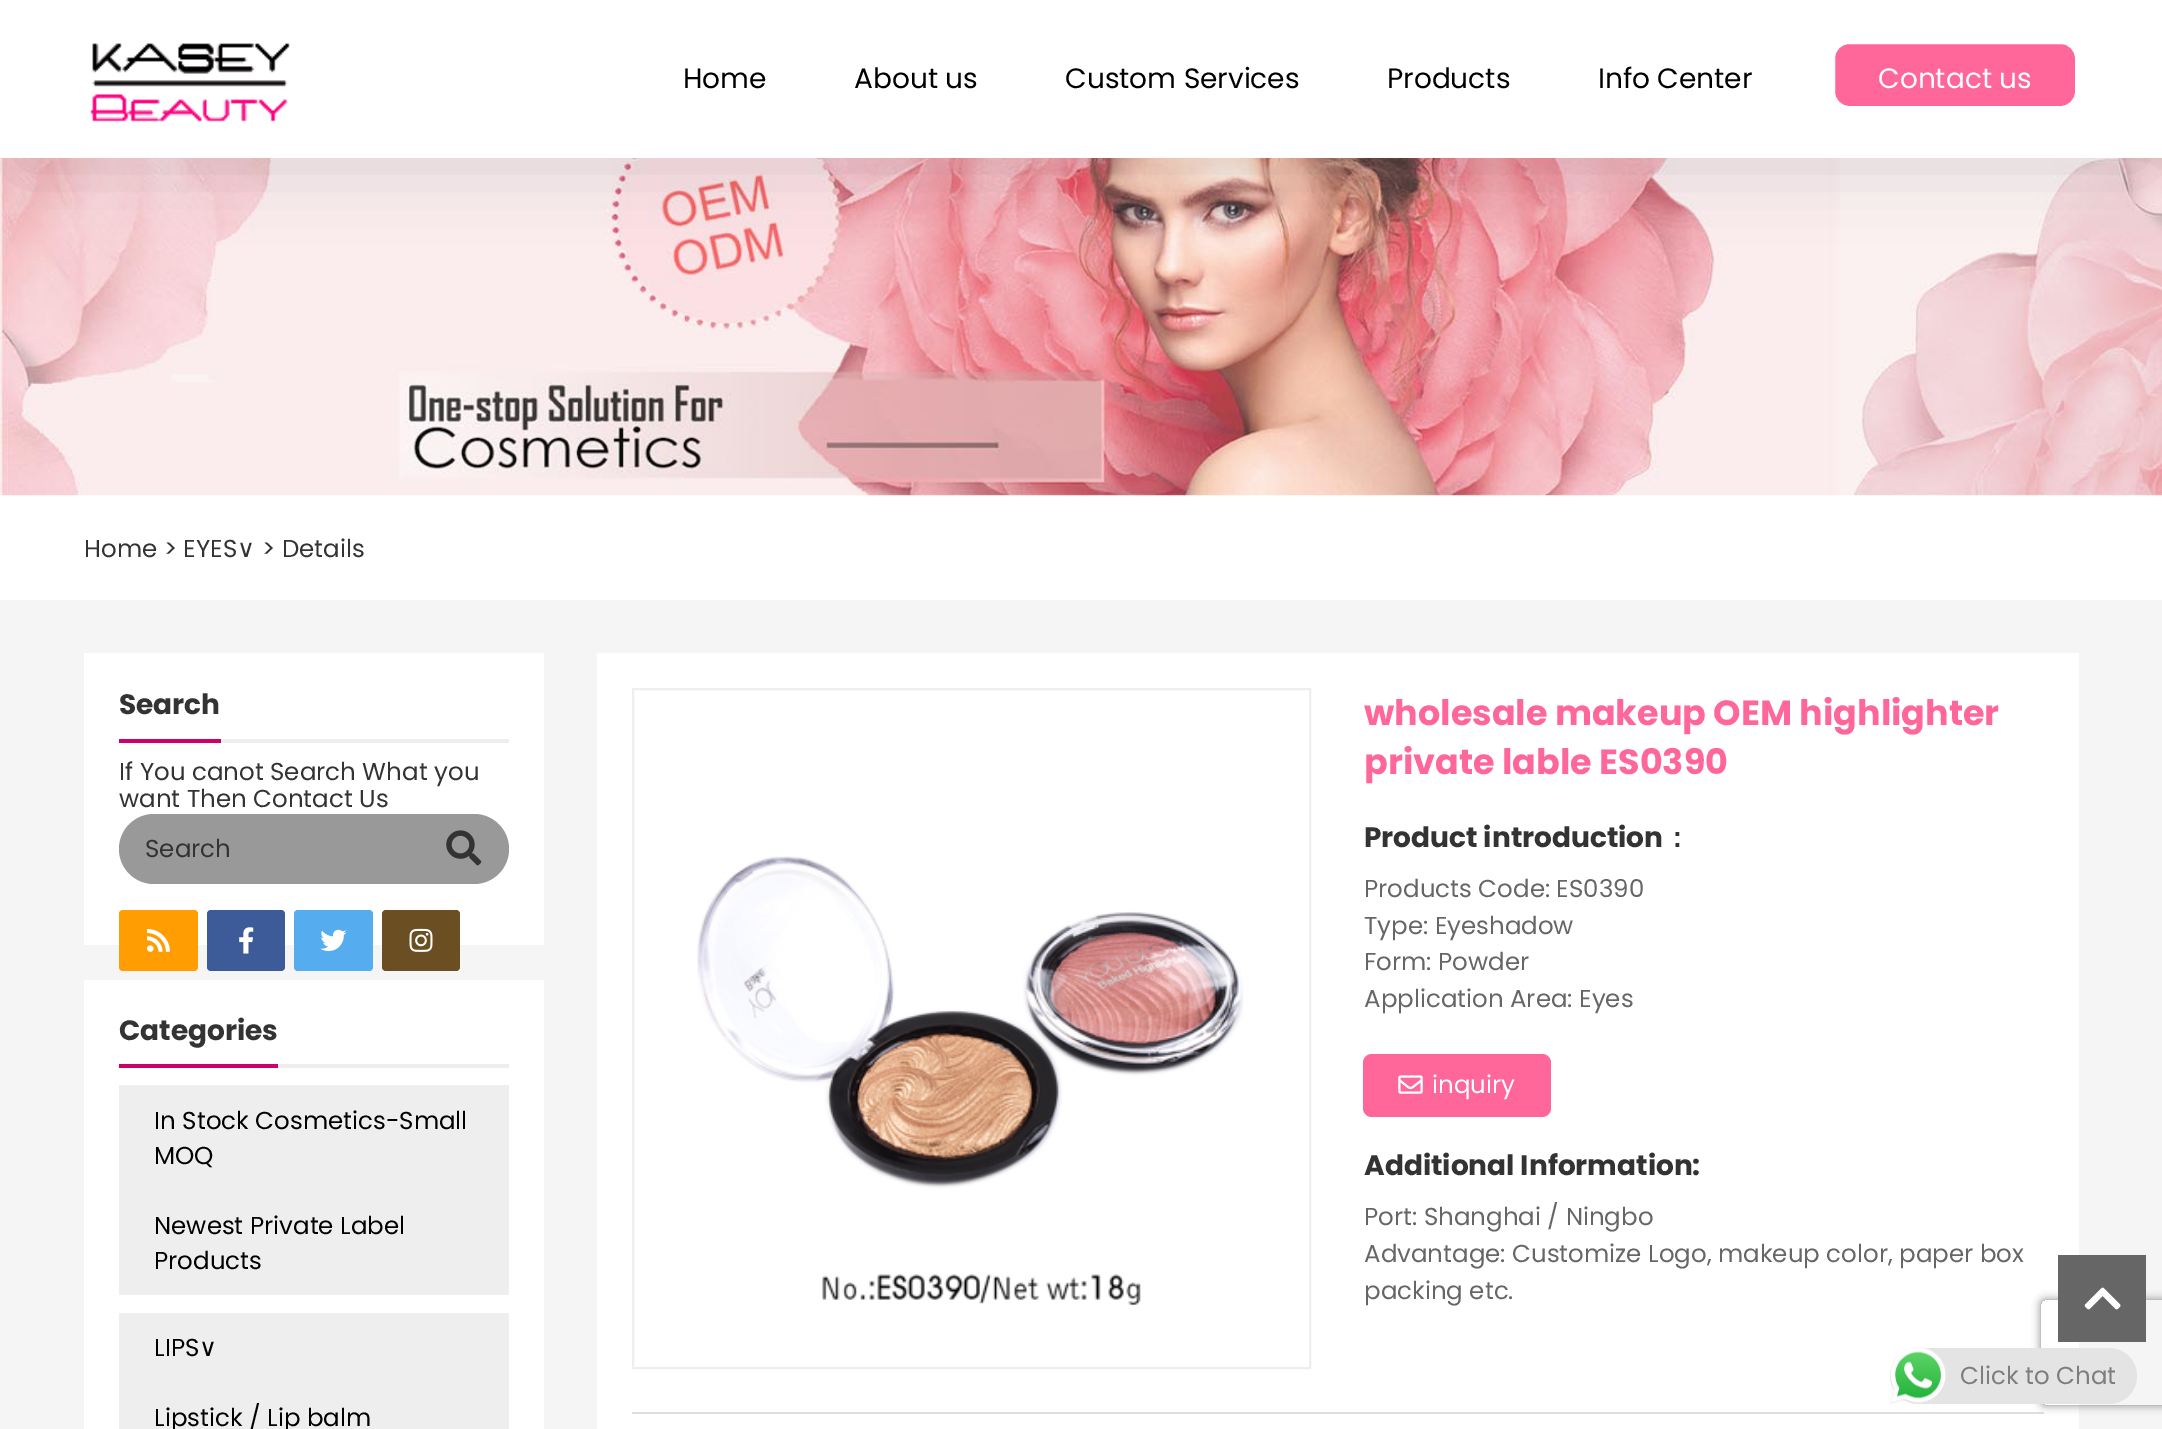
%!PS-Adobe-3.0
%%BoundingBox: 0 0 2162 1429
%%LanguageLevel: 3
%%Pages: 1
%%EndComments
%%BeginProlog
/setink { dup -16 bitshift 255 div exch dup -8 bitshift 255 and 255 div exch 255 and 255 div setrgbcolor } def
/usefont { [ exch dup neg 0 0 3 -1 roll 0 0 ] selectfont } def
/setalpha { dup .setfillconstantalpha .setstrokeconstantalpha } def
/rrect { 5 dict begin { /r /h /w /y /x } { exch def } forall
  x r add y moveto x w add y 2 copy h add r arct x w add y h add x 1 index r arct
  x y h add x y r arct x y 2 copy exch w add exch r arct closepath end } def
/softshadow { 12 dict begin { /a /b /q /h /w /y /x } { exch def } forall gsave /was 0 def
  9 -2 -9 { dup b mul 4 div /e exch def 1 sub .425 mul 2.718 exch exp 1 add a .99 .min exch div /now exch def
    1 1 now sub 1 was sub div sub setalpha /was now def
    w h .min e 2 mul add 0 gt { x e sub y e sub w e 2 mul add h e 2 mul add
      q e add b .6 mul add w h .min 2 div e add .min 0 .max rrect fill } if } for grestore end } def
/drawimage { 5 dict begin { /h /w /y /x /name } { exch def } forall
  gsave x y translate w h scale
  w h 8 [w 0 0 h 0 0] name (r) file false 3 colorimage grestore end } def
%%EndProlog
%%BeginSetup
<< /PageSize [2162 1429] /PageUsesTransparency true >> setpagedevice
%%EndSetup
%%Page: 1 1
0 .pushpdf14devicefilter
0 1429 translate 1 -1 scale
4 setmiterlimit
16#FFFFFF setink
0 0 2162 1429 rectfill
(img2.raw) 0 158 2162 338 drawimage
16#162331 setink
18 44 2128 122 0 35 0.15 softshadow
16#FFFFFF setink
0 0 2162 158 rectfill
(img1.raw) 90 43 200 79 drawimage
/Poppins-Regular 28 usefont
16#000000 setink
[
    [(Home) 683 88]
    [(About us) 854 88]
    [(Custom Services) 1065 88]
    [(Products) 1387 88]
    [(Info Center) 1598 88]
] { aload pop moveto show } forall
16#FF6699 setink
1833 42 244 66 16 rrect gsave fill grestore
16#FFFFFF setink
4 setlinewidth
stroke
1878 88 moveto (Contact us) show
/Poppins-Regular 24.5 usefont
16#333333 setink
84 557 moveto (Home > EYES) show
/DejaVuSans-Regular 24.5 usefont
237 557 moveto (∨) show
/Poppins-Regular 24.5 usefont
262 557 moveto (> Details) show
[
    [0 600 2162 829 16#F5F5F5]
    [84 653 460 292 16#FFFFFF]
    [221 739 288 4 16#EEEEEE]
    [119 739 102 4 16#CC0066]
] { aload pop setink rectfill } forall
/Poppins-Bold 28 usefont
16#333333 setink
119 714 moveto (Search) show
/Poppins-Regular 24.5 usefont
119 780 moveto (If You canot Search What you) show
119 807 moveto (want Then Contact Us) show
16#999999 setink
119 814 390 70 35 rrect fill
16#333333 setink
145 857 moveto (Search) show
(img3.raw) 446 830 36 36 drawimage
16#FF9D03 setink
119 910 79 61 4 rrect fill
(img4.raw) 147 928 23 24 drawimage
16#3D5A99 setink
207 910 78 61 4 rrect fill
(img5.raw) 239 927 15 27 drawimage
16#55ACEE setink
294 910 79 61 4 rrect fill
(img6.raw) 320 929 27 23 drawimage
16#6B4E21 setink
382 910 78 61 4 rrect fill
(img7.raw) 409 928 24 24 drawimage
[
    [84 980 460 449 16#FFFFFF]
    [278 1064 231 4 16#EEEEEE]
    [119 1064 159 4 16#CC0066]
] { aload pop setink rectfill } forall
/Poppins-Bold 28 usefont
16#333333 setink
119 1040 moveto (Categories) show
16#EEEEEE setink
119 1085 390 210 rectfill
/Poppins-Regular 24.5 usefont
16#000000 setink
[
    [(In Stock Cosmetics-Small) 154 1129]
    [(MOQ) 154 1164]
    [(Newest Private Label) 154 1234]
    [(Products) 154 1269]
] { aload pop moveto show } forall
16#EEEEEE setink
119 1313 390 116 rectfill
16#000000 setink
154 1356 moveto (LIPS) show
/DejaVuSans-Regular 24.5 usefont
199 1356 moveto (∨) show
/Poppins-Regular 24.5 usefont
154 1426 moveto (Lipstick / Lip balm) show
16#FFFFFF setink
597 653 1482 776 rectfill
16#DEDEDE setink
632 1412 1412 2 rectfill
16#EEEEEE setink
2 setlinewidth
633 689 677 679 rectstroke
(img8.raw) 697 856 547 450 drawimage
/Poppins-Bold 35 usefont
16#FF6699 setink
1364 725 moveto (wholesale makeup OEM highlighter) show
1364 774 moveto (private lable ES0390) show
/Poppins-Bold 28 usefont
16#333333 setink
1364 847 moveto (Product introduction) show
/WenQuanYiZenHei-Bold 28 usefont
1663 847 moveto (：) show
/Poppins-Regular 24.5 usefont
16#666666 setink
[
    [(Products Code: ES0390) 1364 897]
    [(Type: Eyeshadow) 1364 934]
    [(Form: Powder) 1364 970]
    [(Application Area: Eyes) 1364 1007]
] { aload pop moveto show } forall
16#FF6699 setink
1363 1054 188 63 9 rrect fill
(img9.raw) 1398 1075 25 19 drawimage
16#FFFFFF setink
1432 1093 moveto (inquiry) show
/Poppins-Bold 28 usefont
16#333333 setink
1364 1175 moveto (Additional Information:) show
/Poppins-Regular 24.5 usefont
16#666666 setink
[
    [(Port: Shanghai / Ningbo) 1364 1225]
    [(Advantage: Customize Logo, makeup color, paper box) 1364 1262]
    [(packing etc.) 1364 1299]
] { aload pop moveto show } forall
gsave
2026 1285 moveto 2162 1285 lineto 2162 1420 lineto 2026 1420 lineto closepath 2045 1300 moveto 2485 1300 lineto 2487 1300 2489 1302 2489 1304 curveto 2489 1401 lineto 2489 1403 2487 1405 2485 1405 curveto 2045 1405 lineto 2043 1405 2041 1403 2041 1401 curveto 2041 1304 lineto 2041 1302 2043 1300 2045 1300 curveto closepath eoclip newpath
16#808080 setink
2041 1300 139 105 4 4.5 1 softshadow
grestore
2058 1255 88 87 rectfill
(img10.raw) 2084 1287 37 23 drawimage
16#E4E4E4 setink
1890 1348 247 56 28 rrect fill
(img11.raw) 1890 1347 56 57 drawimage
16#7F7D7D setink
1960 1384 moveto (Click to Chat) show
.poppdf14devicefilter showpage
%%EOF
